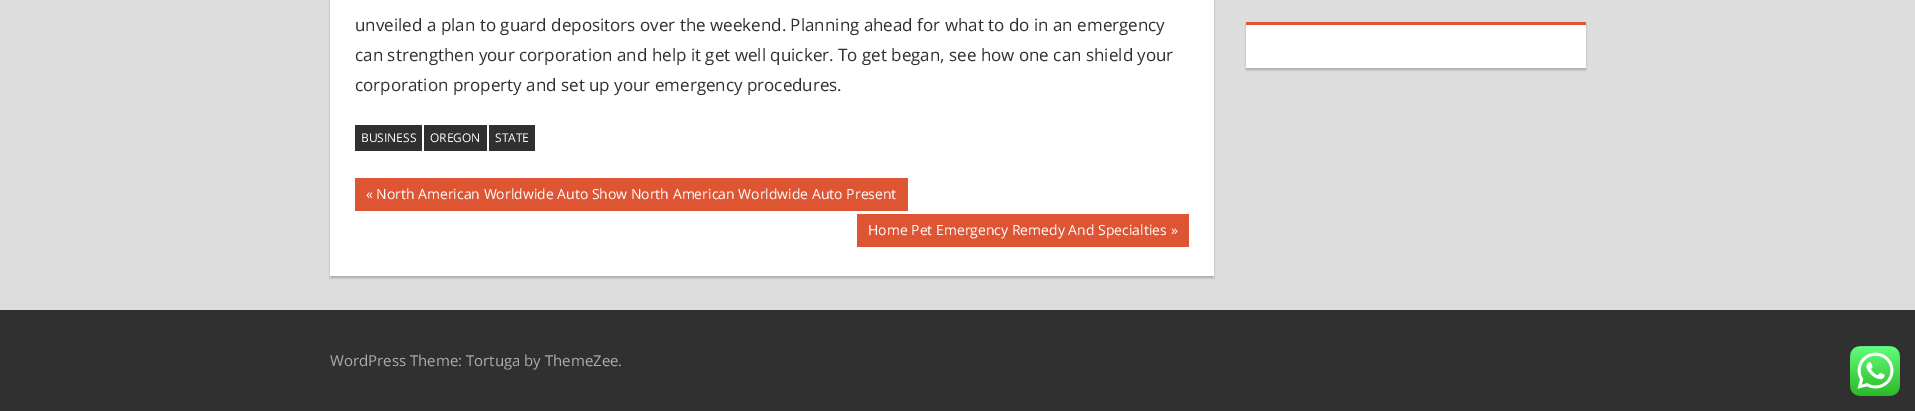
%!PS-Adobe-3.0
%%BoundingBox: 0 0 1915 411
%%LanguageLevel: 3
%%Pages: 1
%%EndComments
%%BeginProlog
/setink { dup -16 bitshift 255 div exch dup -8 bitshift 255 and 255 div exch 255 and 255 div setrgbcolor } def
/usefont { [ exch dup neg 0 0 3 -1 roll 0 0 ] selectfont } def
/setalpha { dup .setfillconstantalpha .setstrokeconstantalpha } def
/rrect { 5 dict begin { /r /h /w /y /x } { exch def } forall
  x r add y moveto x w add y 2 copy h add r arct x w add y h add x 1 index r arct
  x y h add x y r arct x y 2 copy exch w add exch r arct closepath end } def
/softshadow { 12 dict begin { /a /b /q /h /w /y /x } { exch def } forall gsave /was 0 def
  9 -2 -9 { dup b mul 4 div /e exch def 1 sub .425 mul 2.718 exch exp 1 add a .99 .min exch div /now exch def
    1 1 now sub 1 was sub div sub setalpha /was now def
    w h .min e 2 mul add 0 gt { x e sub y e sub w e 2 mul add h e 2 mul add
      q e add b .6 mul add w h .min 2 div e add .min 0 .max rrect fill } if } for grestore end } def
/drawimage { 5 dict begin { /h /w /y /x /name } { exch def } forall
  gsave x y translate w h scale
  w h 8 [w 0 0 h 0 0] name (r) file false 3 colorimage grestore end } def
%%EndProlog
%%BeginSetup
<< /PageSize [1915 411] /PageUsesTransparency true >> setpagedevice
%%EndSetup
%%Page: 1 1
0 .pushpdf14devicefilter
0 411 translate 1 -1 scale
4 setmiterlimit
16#DDDDDD setink
0 0 1915 411 rectfill
16#AAAAAA setink
330 -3 884 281 0 1 1 softshadow
16#FFFFFF setink
330 0 884 276 rectfill
/OpenSans-Regular 17 usefont
16#303030 setink
[
    [(unveiled a plan to guard depositors over the weekend. Planning ahead for what to do in an emergency) 355 31]
    [(can strengthen your corporation and help it get well quicker. To get began, see how one can shield your) 355 61]
    [(corporation property and set up your emergency procedures.) 355 91]
] { aload pop moveto show } forall
355 125 67 26 rectfill
/OpenSans-Regular 12 usefont
16#FFFFFF setink
361 142 moveto (BUSINESS) show
16#303030 setink
424 125 63 26 rectfill
16#FFFFFF setink
430 142 moveto (OREGON) show
16#303030 setink
489 125 46 26 rectfill
16#FFFFFF setink
495 142 moveto (STATE) show
16#DD5533 setink
355 178 553 33 rectfill
/OpenSans-Regular 14 usefont
16#FFFFFF setink
366 199 moveto («) show
376 199 moveto (North American Worldwide Auto Show North American Worldwide Auto Present) show
16#DD5533 setink
857 214 332 33 rectfill
16#FFFFFF setink
868 235 moveto (Home Pet Emergency Remedy And Specialties) show
1171 235 moveto (») show
16#AAAAAA setink
1246 24 340 46 0 1 1 softshadow
[
    [1246 25 340 43 16#FFFFFF]
    [1246 22 340 3 16#DD5533]
    [0 310 1915 101 16#303030]
] { aload pop setink rectfill } forall
/OpenSans-Regular 15 usefont
16#ACACAC setink
330 366 moveto (WordPress Theme: Tortuga by ThemeZee.) show
(img1.raw) 1850 346 50 50 drawimage
.poppdf14devicefilter showpage
%%EOF
